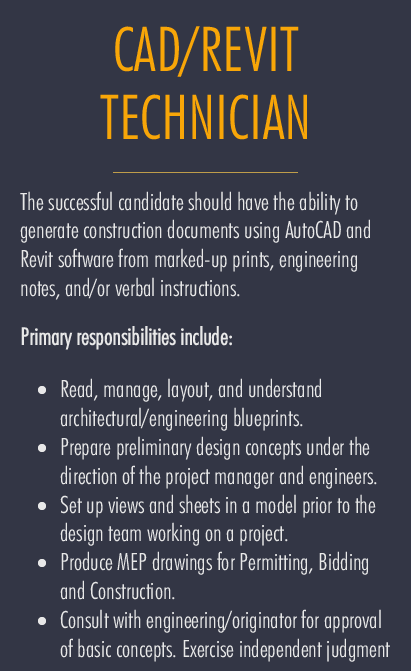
%!PS-Adobe-3.0
%%BoundingBox: 0 0 411 671
%%LanguageLevel: 3
%%Pages: 1
%%EndComments
%%BeginProlog
/setink { dup -16 bitshift 255 div exch dup -8 bitshift 255 and 255 div exch 255 and 255 div setrgbcolor } def
/usefont { [ exch dup neg 0 0 3 -1 roll 0 0 ] selectfont } def
/disc { newpath 0 360 arc closepath } def
%%EndProlog
%%BeginSetup
<< /PageSize [411 671] >> setpagedevice
%%EndSetup
%%Page: 1 1
0 671 translate 1 -1 scale
4 setmiterlimit
16#333645 setink
0 0 411 671 rectfill
/Futura-Light 62 usefont
16#F8A608 setink
113 71 moveto (CAD/REVIT) show
100 139 moveto (TECHNICIAN) show
16#BF9D4A setink
113 172 185 1 rectfill
/Futura-Light 24 usefont
16#E8E8E8 setink
[
    [(The successful candidate should have the ability to) 20 210]
    [(generate construction documents using AutoCAD and) 20 238]
    [(Revit software from marked-up prints, engineering) 20 267]
    [(notes, and/or verbal instructions.) 20 296]
] { aload pop moveto show } forall
/Futura-Bold 24 usefont
20 345 moveto (Primary responsibilities include:) show
42 390 4 disc fill
/Futura-Light 24 usefont
60 397 moveto (Read, manage, layout, and understand) show
60 426 moveto (architectural/engineering blueprints.) show
42 448 4 disc fill
60 455 moveto (Prepare preliminary design concepts under the) show
60 484 moveto (direction of the project manager and engineers.) show
42 506 4 disc fill
60 513 moveto (Set up views and sheets in a model prior to the) show
60 541 moveto (design team working on a project.) show
42 563 4 disc fill
60 570 moveto (Produce MEP drawings for Permitting, Bidding) show
60 599 moveto (and Construction.) show
42 621 4 disc fill
60 628 moveto (Consult with engineering/originator for approval) show
60 657 moveto (of basic concepts. Exercise independent judgment) show
showpage
%%EOF
